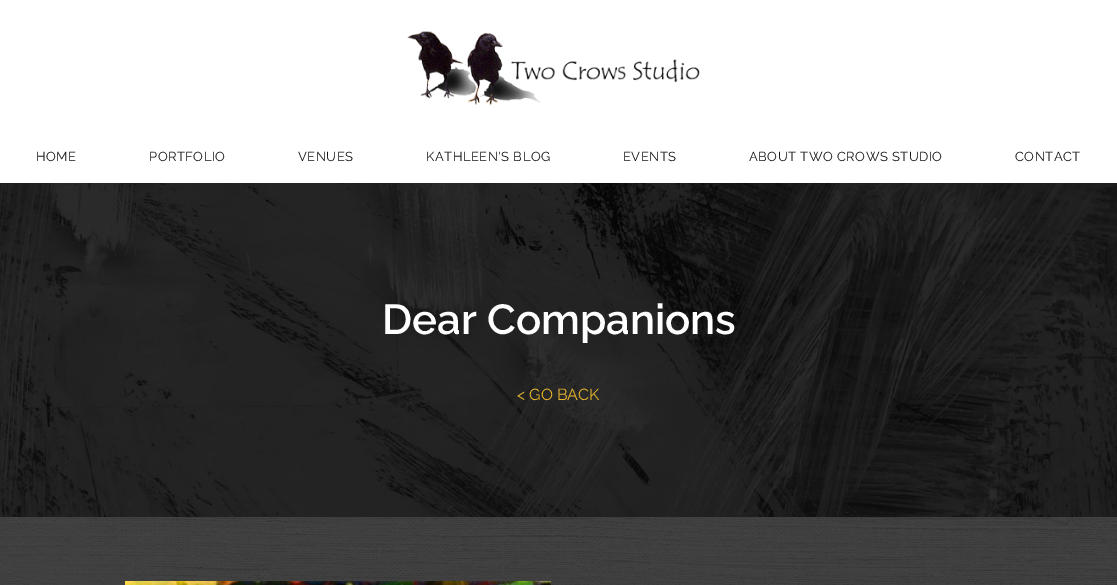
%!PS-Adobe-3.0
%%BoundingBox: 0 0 1117 585
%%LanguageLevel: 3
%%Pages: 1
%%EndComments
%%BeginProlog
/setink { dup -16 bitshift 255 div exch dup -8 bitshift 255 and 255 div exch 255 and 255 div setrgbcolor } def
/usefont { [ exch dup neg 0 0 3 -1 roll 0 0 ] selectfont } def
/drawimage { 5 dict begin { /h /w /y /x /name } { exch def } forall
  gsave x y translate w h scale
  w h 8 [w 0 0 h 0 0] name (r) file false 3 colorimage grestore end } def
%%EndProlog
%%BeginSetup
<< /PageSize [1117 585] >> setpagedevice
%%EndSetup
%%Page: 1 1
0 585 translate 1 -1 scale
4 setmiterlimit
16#FFFFFF setink
0 0 1117 585 rectfill
(img1.raw) 407 31 293 75 drawimage
/Raleway-Regular 13 usefont
16#151414 setink
36 161 moveto 0.5 0 (HOME) ashow
149 161 moveto 0.5 0 (PORTFOLIO) ashow
298 161 moveto 0.5 0 (VENUES) ashow
426 161 moveto 0.5 0 (KATHLEEN'S BLOG) ashow
623 161 moveto 0.5 0 (EVENTS) ashow
749 161 moveto 0.5 0 (ABOUT TWO CROWS STUDIO) ashow
1015 161 moveto 0.5 0 (CONTACT) ashow
(img2.raw) 0 183 1117 334 drawimage
/Raleway-SemiBold 42 usefont
16#FFFFFF setink
382 334 moveto (Dear Companions) show
/Raleway-Regular 16 usefont
16#EBB82E setink
517 400 moveto (< GO BACK) show
(img3.raw) 0 517 1117 68 drawimage
(img4.raw) 125 581 426 4 drawimage
showpage
%%EOF
